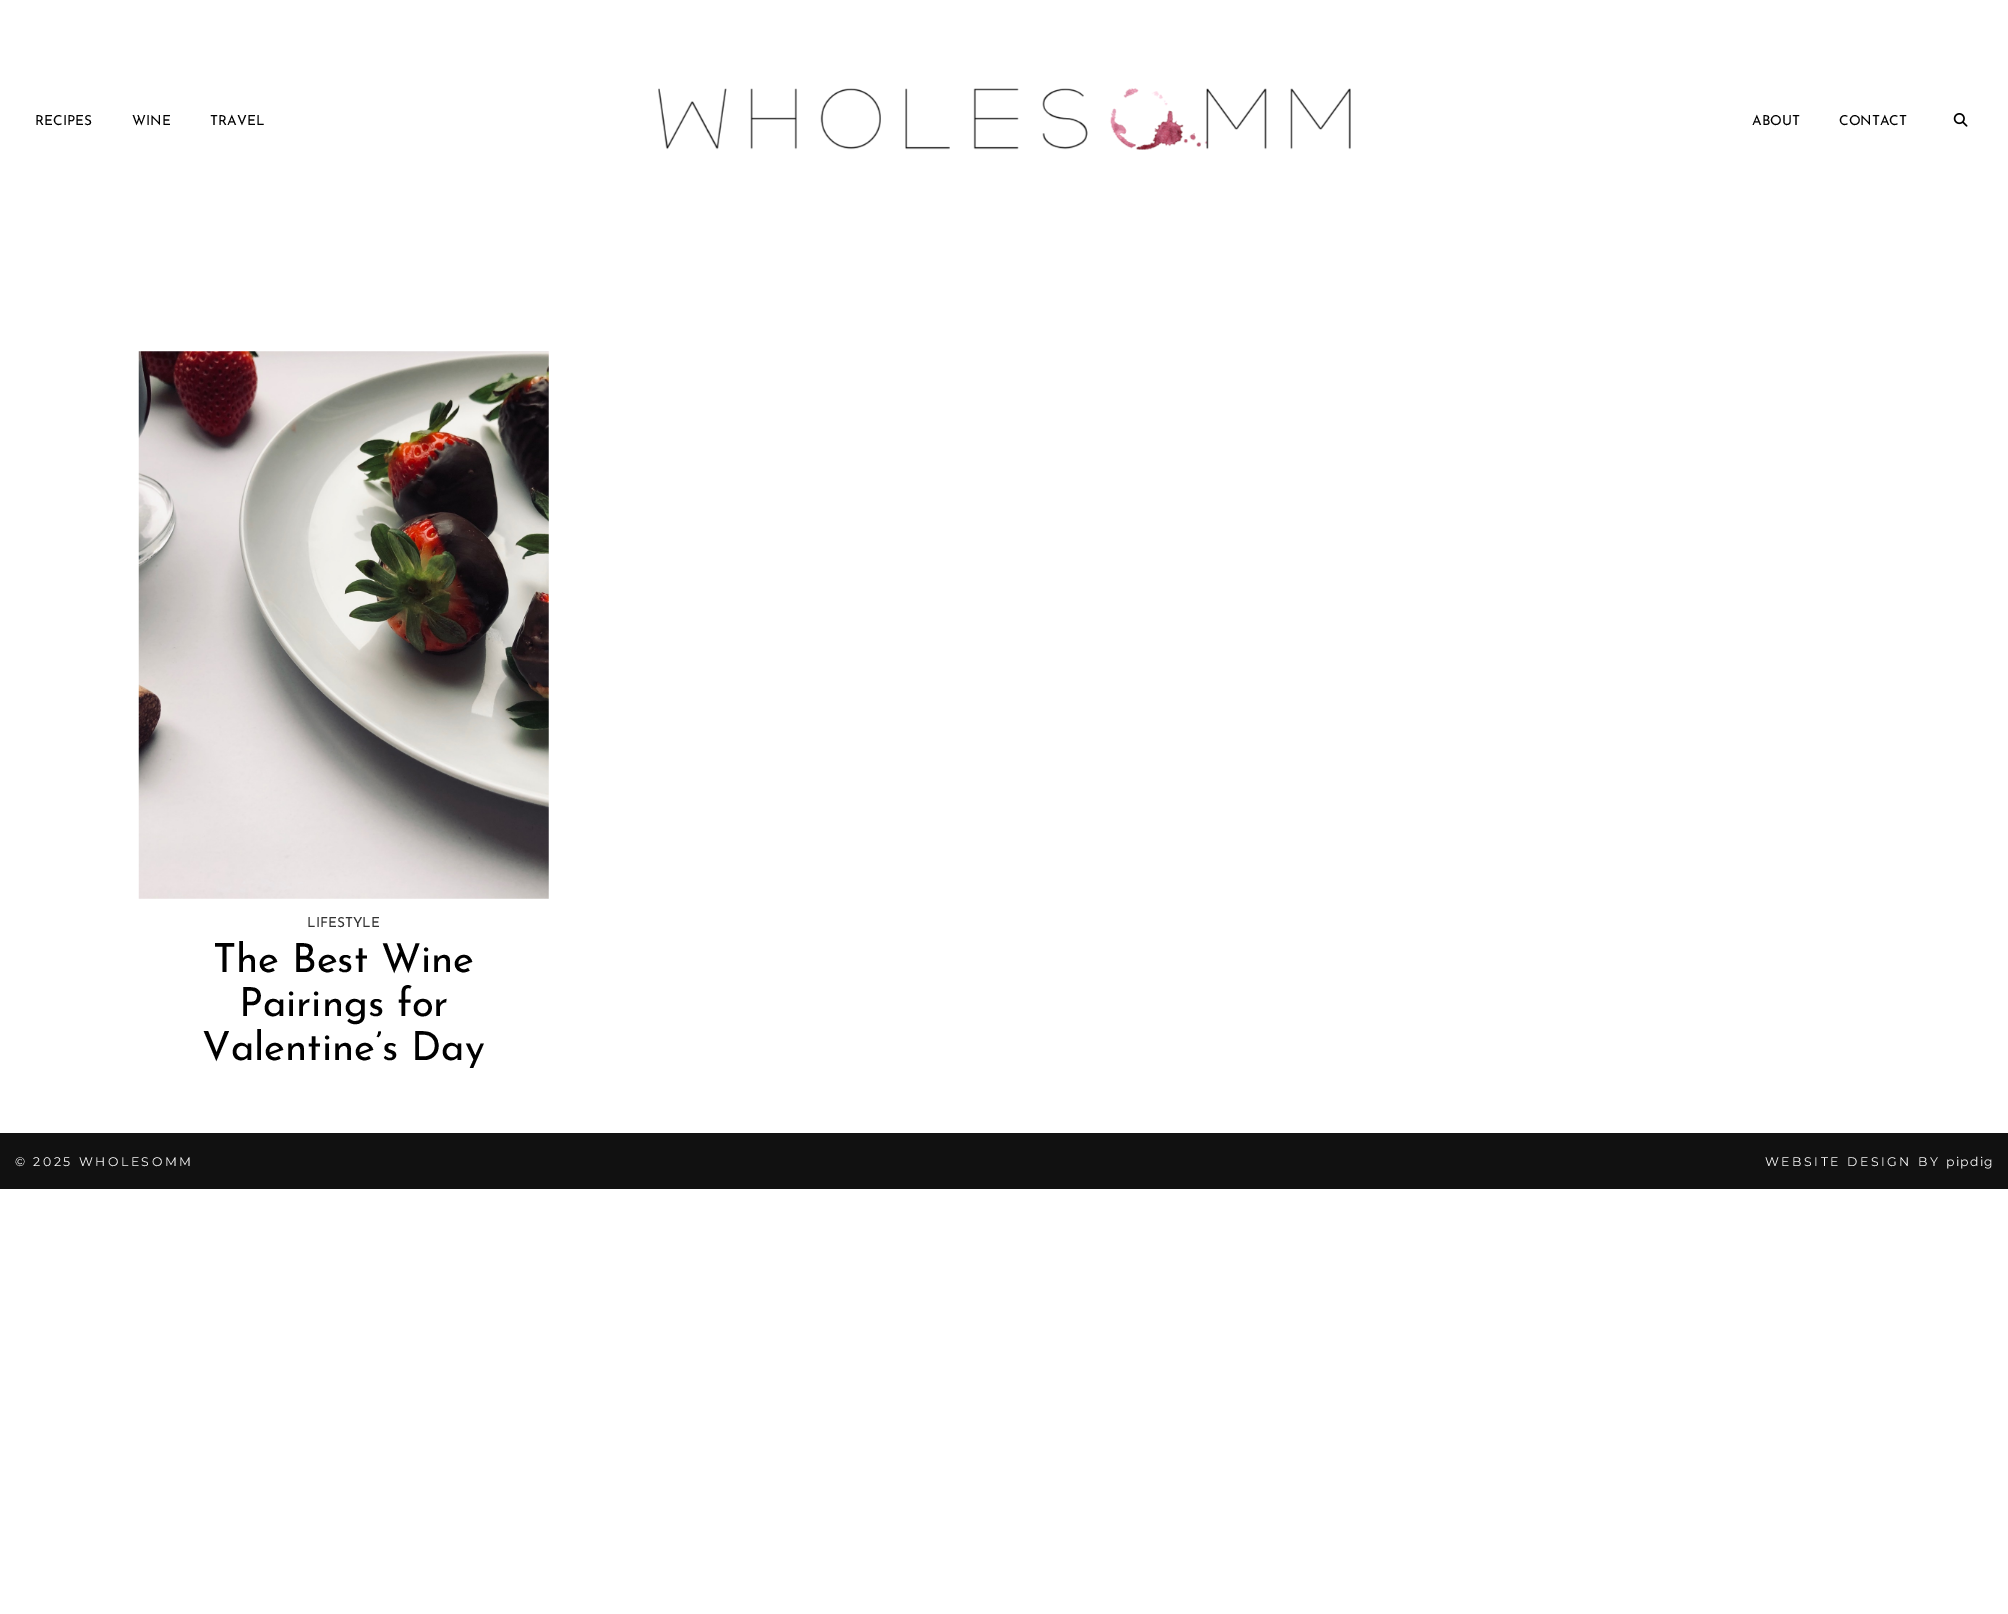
%!PS-Adobe-3.0
%%BoundingBox: 0 0 2008 1614
%%LanguageLevel: 3
%%Pages: 1
%%EndComments
%%BeginProlog
/setink { dup -16 bitshift 255 div exch dup -8 bitshift 255 and 255 div exch 255 and 255 div setrgbcolor } def
/usefont { [ exch dup neg 0 0 3 -1 roll 0 0 ] selectfont } def
/drawimage { 5 dict begin { /h /w /y /x /name } { exch def } forall
  gsave x y translate w h scale
  w h 8 [w 0 0 h 0 0] name (r) file false 3 colorimage grestore end } def
%%EndProlog
%%BeginSetup
<< /PageSize [2008 1614] >> setpagedevice
%%EndSetup
%%Page: 1 1
0 1614 translate 1 -1 scale
4 setmiterlimit
16#FFFFFF setink
0 0 2008 1614 rectfill
/JosefinSans-Thin 13.75 usefont
16#000000 setink
[
    [(RECIPES) 35 125]
    [(WINE) 132 125]
    [(TRAVEL) 210 125]
] { aload pop moveto show } forall
(img1.raw) 658 88 693 62 drawimage
1752 125 moveto (ABOUT) show
1839 125 moveto (CONTACT) show
(img2.raw) 1953 113 15 14 drawimage
(img3.raw) 138 351 411 548 drawimage
16#333333 setink
307 927 moveto (LIFESTYLE) show
/JosefinSans-Thin 40 usefont
16#000000 setink
[
    [(The Best Wine) 213 972]
    [(Pairings for) 239 1016]
    [(Valentine’s Day) 202 1060]
] { aload pop moveto show } forall
16#111111 setink
0 1133 2008 56 rectfill
/Montserrat-Thin 12.5 usefont
16#FFFFFF setink
15 1166 moveto 2.5 0 (© 2025 WHOLESOMM) ashow
1765 1166 moveto 2.5 0 (WEBSITE DESIGN BY) ashow
1946 1166 moveto 1.25 0 (pipdig) ashow
showpage
%%EOF
